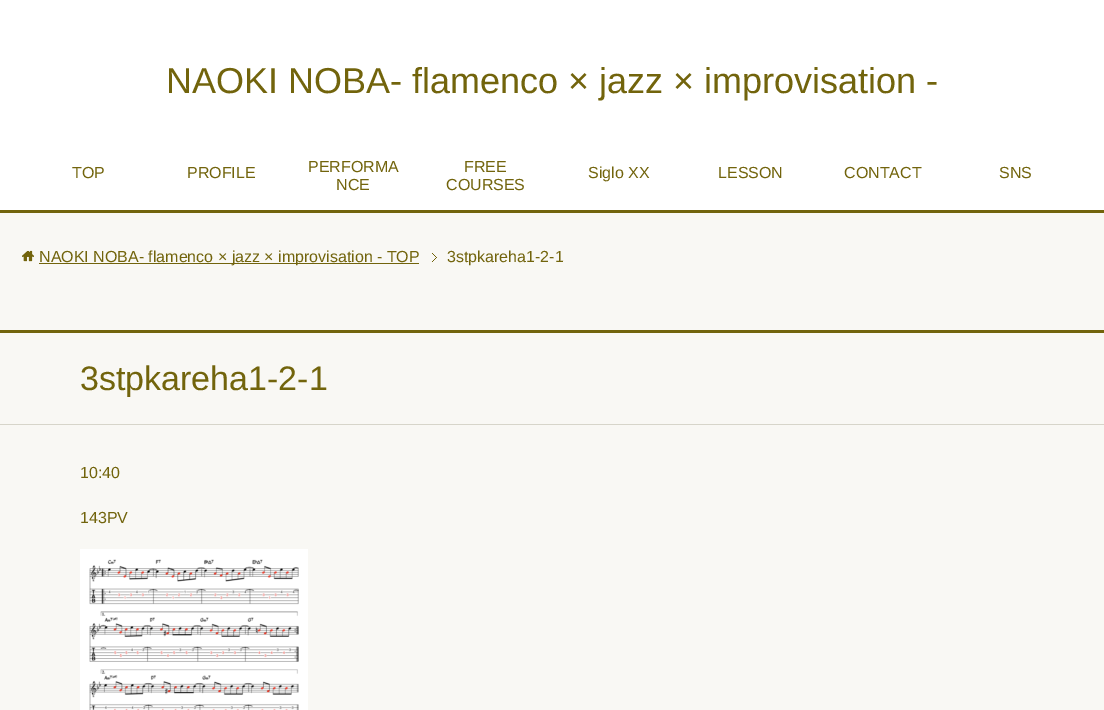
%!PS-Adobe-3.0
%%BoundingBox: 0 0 1104 710
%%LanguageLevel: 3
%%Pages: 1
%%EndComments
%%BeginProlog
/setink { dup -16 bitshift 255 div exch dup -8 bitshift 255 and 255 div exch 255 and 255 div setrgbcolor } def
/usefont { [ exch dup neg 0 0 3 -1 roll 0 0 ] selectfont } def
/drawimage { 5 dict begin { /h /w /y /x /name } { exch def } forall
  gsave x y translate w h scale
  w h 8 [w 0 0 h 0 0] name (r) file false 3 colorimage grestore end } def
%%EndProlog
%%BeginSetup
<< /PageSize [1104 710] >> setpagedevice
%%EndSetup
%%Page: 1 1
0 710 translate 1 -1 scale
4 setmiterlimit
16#F9F8F4 setink
0 0 1104 710 rectfill
16#FFFFFF setink
0 0 1104 210 rectfill
/LiberationSans-Regular 36 usefont
16#72640C setink
166 93 moveto (NAOKI NOBA- flamenco × jazz × improvisation -) show
0 210 1104 3 rectfill
/LiberationSans-Regular 16 usefont
[
    [(TOP) 72 178]
    [(PROFILE) 187 178]
    [(PERFORMA) 308 172]
    [(NCE) 336 190]
    [(FREE) 464 172]
    [(COURSES) 446 190]
    [(Siglo XX) 588 178]
    [(LESSON) 718 178]
    [(CONTACT) 844 178]
    [(SNS) 999 178]
] { aload pop moveto show } forall
(img1.raw) 432 253 5 9 drawimage
(img2.raw) 22 250 12 12 drawimage
39 263 380 1 rectfill
39 262 moveto (NAOKI NOBA- flamenco × jazz × improvisation - TOP) show
447 262 moveto (3stpkareha1-2-1) show
0 330 1104 3 rectfill
16#D7D5CA setink
0 424 1104 1 rectfill
/LiberationSans-Regular 34 usefont
16#72640C setink
80 390 moveto (3stpkareha1-2-1) show
/LiberationSans-Regular 16 usefont
80 478 moveto (10:40) show
80 523 moveto (143PV) show
(img3.raw) 80 549 228 161 drawimage
showpage
%%EOF
